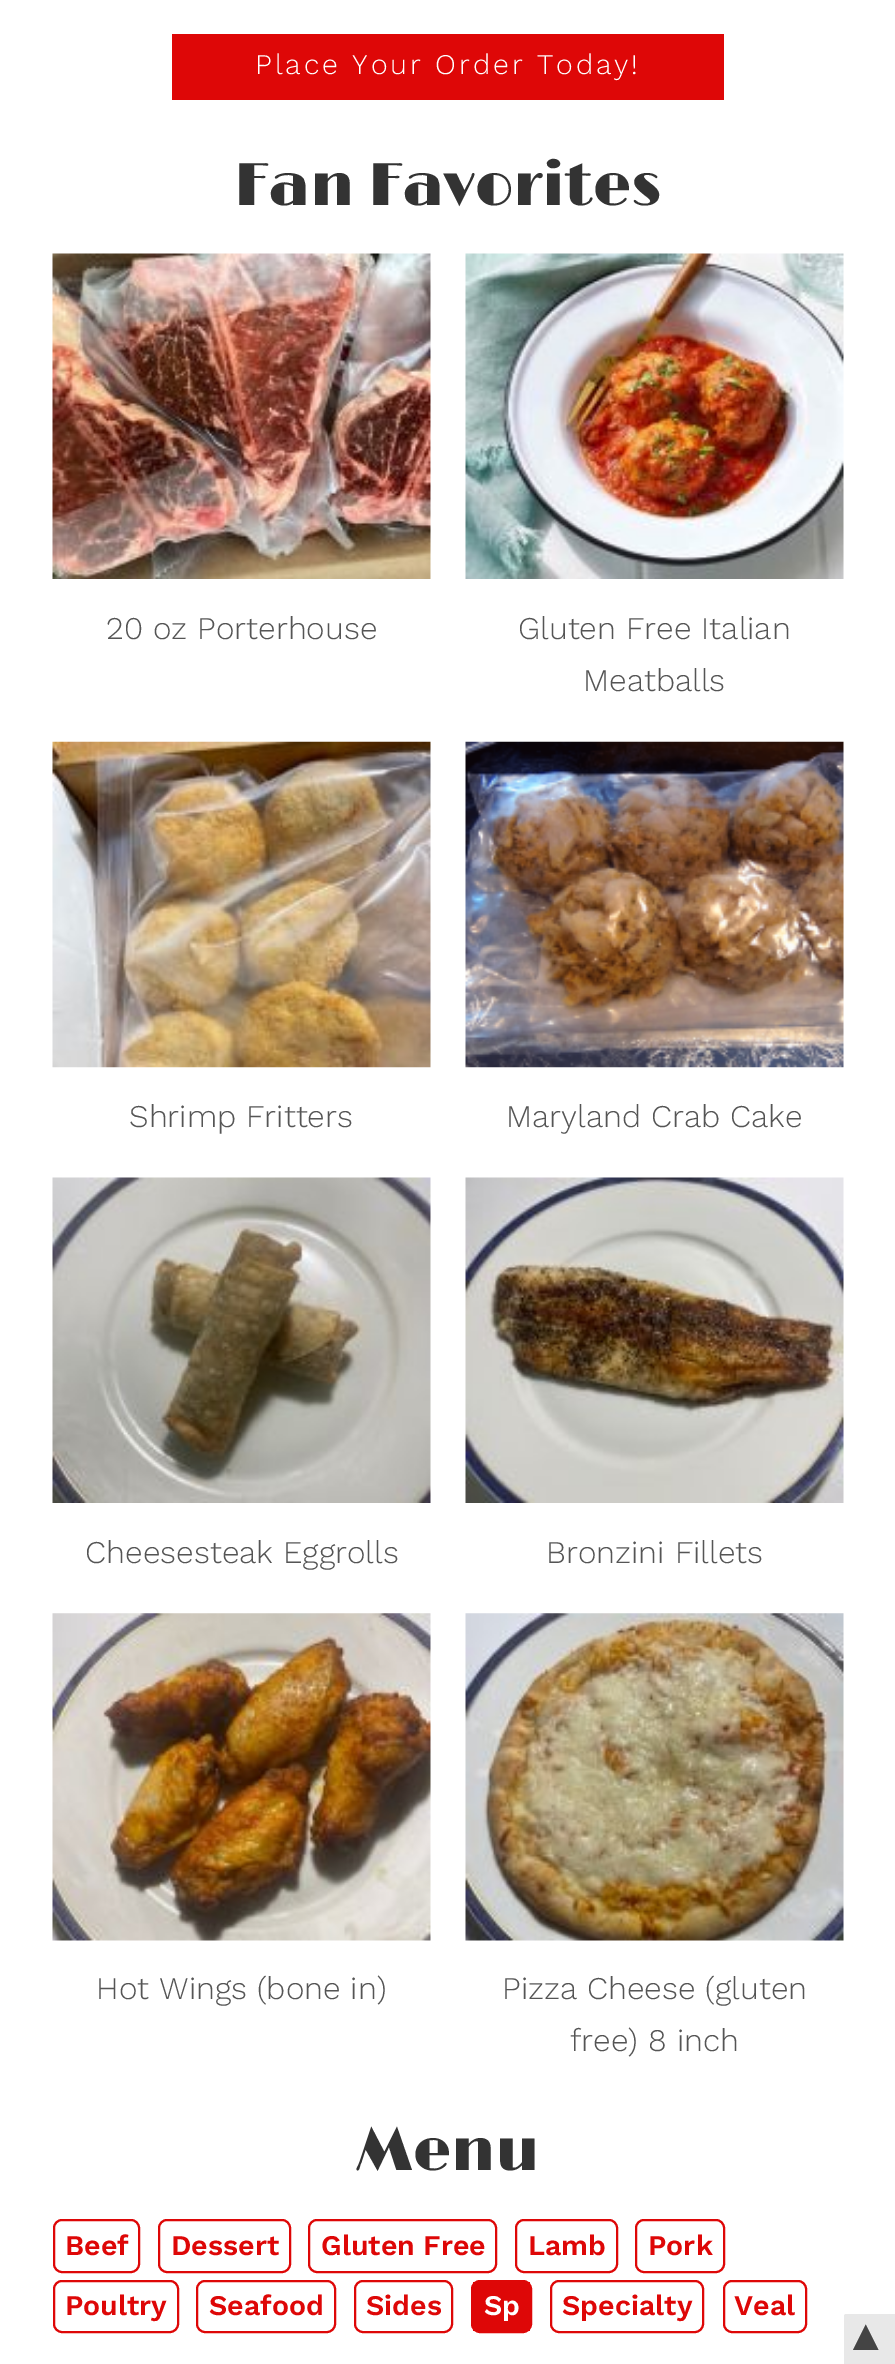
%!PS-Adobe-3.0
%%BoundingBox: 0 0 895 2364
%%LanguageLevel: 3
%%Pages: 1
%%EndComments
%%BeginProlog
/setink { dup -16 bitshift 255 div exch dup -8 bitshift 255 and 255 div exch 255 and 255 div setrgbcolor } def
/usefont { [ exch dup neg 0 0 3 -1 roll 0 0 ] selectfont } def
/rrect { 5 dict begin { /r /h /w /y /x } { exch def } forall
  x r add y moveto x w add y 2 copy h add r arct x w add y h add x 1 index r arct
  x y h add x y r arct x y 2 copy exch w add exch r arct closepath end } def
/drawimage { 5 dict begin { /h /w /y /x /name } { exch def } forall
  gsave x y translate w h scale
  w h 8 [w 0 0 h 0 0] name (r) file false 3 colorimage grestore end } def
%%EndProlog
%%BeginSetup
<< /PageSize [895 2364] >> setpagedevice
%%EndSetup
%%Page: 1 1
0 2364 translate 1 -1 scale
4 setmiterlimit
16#FFFFFF setink
0 0 895 2364 rectfill
16#DE0707 setink
172 34 552 66 rectfill
/WorkSans-Light 28.5 usefont
16#FFFFFF setink
255 74 moveto 2.85 0 (Place Your Order Today!) ashow
/Limelight-Light 60.5 usefont
16#333333 setink
234 205 moveto (Fan Favorites) show
(img1.raw) 52 253 379 326 drawimage
/WorkSans-Light 31.6 usefont
16#555555 setink
106 639 moveto (20 oz Porterhouse) show
(img2.raw) 465 253 379 326 drawimage
518 639 moveto (Gluten Free Italian) show
583 691 moveto (Meatballs) show
(img3.raw) 52 741 379 327 drawimage
129 1127 moveto (Shrimp Fritters) show
(img4.raw) 465 741 379 327 drawimage
506 1127 moveto (Maryland Crab Cake) show
(img5.raw) 52 1177 379 326 drawimage
85 1563 moveto (Cheesesteak Eggrolls) show
(img6.raw) 465 1177 379 326 drawimage
546 1563 moveto (Bronzini Fillets) show
(img7.raw) 52 1613 379 328 drawimage
96 1999 moveto (Hot Wings \(bone in\)) show
(img8.raw) 465 1613 379 328 drawimage
502 1999 moveto (Pizza Cheese \(gluten) show
570 2051 moveto (free\) 8 inch) show
/Limelight-Light 60.5 usefont
16#333333 setink
356 2170 moveto (Menu) show
16#DE0707 setink
2 setlinewidth
54 2220 85 52 8 rrect stroke
/WorkSans-SemiBold 28.5 usefont
65 2255 moveto (Beef) show
159 2220 131 52 8 rrect stroke
171 2255 moveto (Dessert) show
309 2220 187 52 8 rrect stroke
321 2255 moveto (Gluten Free) show
516 2220 101 52 8 rrect stroke
528 2255 moveto (Lamb) show
636 2220 88 52 8 rrect stroke
648 2255 moveto (Pork) show
54 2281 124 51 8 rrect stroke
65 2315 moveto (Poultry) show
197 2281 138 51 8 rrect stroke
209 2315 moveto (Seafood) show
355 2281 97 51 8 rrect stroke
366 2315 moveto (Sides) show
472 2281 59 51 8 rrect stroke
473 2282 57 49 rectfill
16#FFFFFF setink
484 2315 moveto (Sp) show
16#DE0707 setink
551 2281 152 51 8 rrect stroke
562 2315 moveto (Specialty) show
724 2281 82 51 8 rrect stroke
734 2315 moveto (Veal) show
16#E8E8E8 setink
846 2314 moveto 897 2314 lineto 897 2364 lineto 844 2364 lineto 844 2316 lineto 844 2315 845 2314 846 2314 curveto closepath fill
/LiberationSans-Regular 44 usefont
16#444444 setink
844 2350 moveto 14 0 (▲) ashow
showpage
%%EOF
